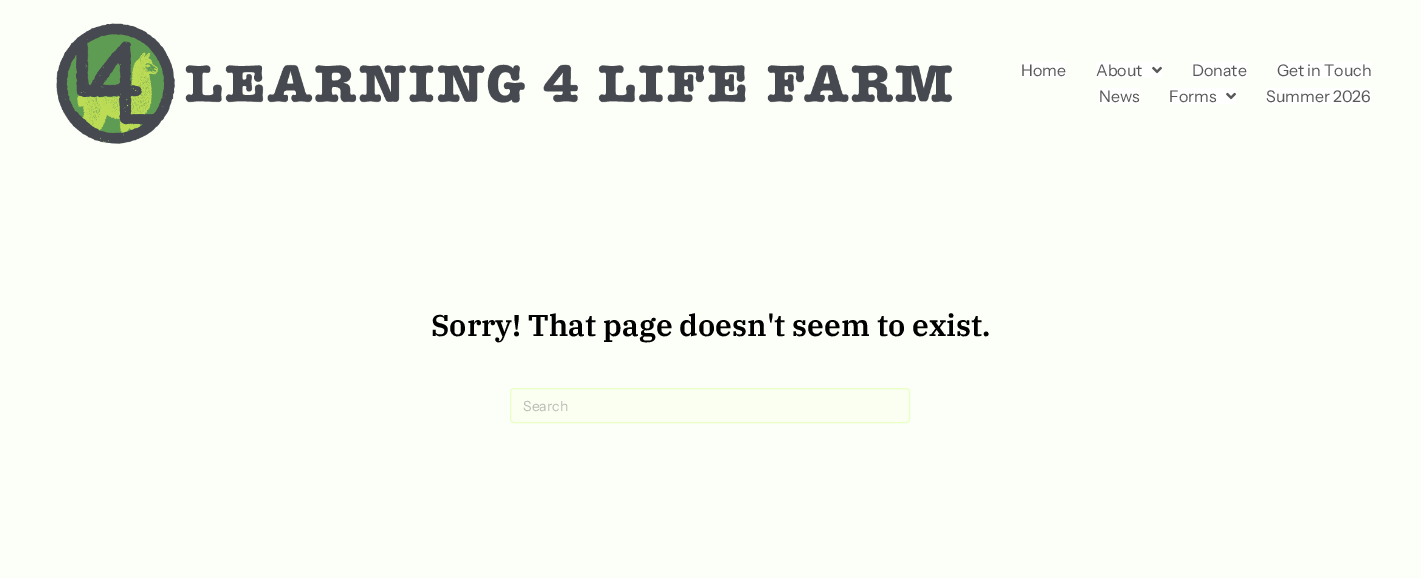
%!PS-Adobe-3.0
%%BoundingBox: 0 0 1421 578
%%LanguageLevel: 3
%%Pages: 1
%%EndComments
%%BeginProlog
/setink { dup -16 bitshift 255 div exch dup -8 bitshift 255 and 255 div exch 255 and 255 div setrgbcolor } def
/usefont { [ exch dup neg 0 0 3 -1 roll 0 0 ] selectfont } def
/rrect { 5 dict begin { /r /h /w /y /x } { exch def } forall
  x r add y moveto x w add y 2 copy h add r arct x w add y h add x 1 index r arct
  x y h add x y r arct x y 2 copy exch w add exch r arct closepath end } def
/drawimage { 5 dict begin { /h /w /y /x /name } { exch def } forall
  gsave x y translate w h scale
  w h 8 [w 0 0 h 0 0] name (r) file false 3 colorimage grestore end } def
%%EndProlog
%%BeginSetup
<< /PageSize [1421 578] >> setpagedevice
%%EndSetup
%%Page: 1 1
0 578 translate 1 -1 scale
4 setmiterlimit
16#FCFFF7 setink
0 0 1421 578 rectfill
(img1.raw) 56 23 897 121 drawimage
16#FFFFFF setink
1021 62 45 16 rectfill
/InstrumentSans-Regular 16 usefont
16#585858 setink
1021 76 moveto (Home) show
16#FFFFFF setink
1096 62 66 16 rectfill
16#585858 setink
1096 76 moveto (About) show
(img2.raw) 1152 66 10 8 drawimage
16#FFFFFF setink
1192 62 55 16 rectfill
16#585858 setink
1192 76 moveto (Donate) show
16#FFFFFF setink
1277 62 94 16 rectfill
16#585858 setink
1277 76 moveto (Get in Touch) show
16#FFFFFF setink
1099 88 40 16 rectfill
16#585858 setink
1099 102 moveto (News) show
16#FFFFFF setink
1169 88 67 16 rectfill
16#585858 setink
1169 102 moveto (Forms) show
(img2.raw) 1226 92 10 8 drawimage
16#FFFFFF setink
1266 88 105 16 rectfill
16#585858 setink
1266 102 moveto (Summer 2026) show
/IBMPlexSerif-SemiBold 30 usefont
16#000000 setink
431 336 moveto (Sorry! That page doesn't seem to exist.) show
16#FAFFF2 setink
510.5 388.5 399 34 3.5 rrect gsave fill grestore
16#E9FFC4 setink
stroke
/InstrumentSans-Regular 14 usefont
16#B9BCB4 setink
523 411 moveto (Search) show
showpage
%%EOF
